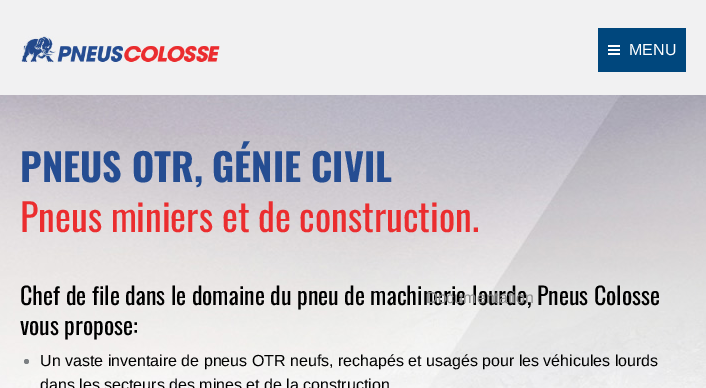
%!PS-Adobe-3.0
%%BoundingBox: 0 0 706 388
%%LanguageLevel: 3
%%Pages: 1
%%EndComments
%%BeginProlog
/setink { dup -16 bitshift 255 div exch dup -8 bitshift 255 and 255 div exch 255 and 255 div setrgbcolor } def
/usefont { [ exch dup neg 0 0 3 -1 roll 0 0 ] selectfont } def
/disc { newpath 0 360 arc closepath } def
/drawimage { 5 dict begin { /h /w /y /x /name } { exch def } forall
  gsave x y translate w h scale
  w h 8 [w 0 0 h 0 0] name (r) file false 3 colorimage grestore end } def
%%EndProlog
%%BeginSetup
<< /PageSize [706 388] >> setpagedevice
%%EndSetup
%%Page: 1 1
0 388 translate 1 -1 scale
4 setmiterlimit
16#F1F1F2 setink
0 0 706 388 rectfill
(img1.raw) 20 36 200 27 drawimage
[
    [598 28 88 44 16#00477D]
    [608 53 12 2 16#FFFFFF]
    [608 49 12 2 16#FFFFFF]
    [608 45 12 2 16#FFFFFF]
] { aload pop setink rectfill } forall
/LiberationSans-Regular 16 usefont
629 55 moveto (MENU) show
(img2.raw) 0 95 706 293 drawimage
/Oswald-Regular 24 usefont
16#000000 setink
20 305 moveto (Chef de file dans le domaine du pneu de machinerie lourde, Pneus Colosse) show
/LiberationSans-Regular 16 usefont
16#8C8C8C setink
426 303 moveto (Documentation) show
/Oswald-Bold 38 usefont
16#254D92 setink
20 182 moveto (PNEUS OTR, GÉNIE CIVIL) show
/Oswald-Regular 38 usefont
16#EB2D2F setink
20 232 moveto (Pneus miniers et de construction.) show
/Oswald-Regular 24 usefont
16#000000 setink
20 335 moveto (vous propose:) show
16#7B7F82 setink
26.5 361.5 2.5 disc fill
/LiberationSans-Regular 16 usefont
16#000000 setink
40 366 moveto (Un vaste inventaire de pneus OTR neufs, rechapés et usagés pour les véhicules lourds) show
40 390 moveto (dans les secteurs des mines et de la construction) show
showpage
%%EOF
